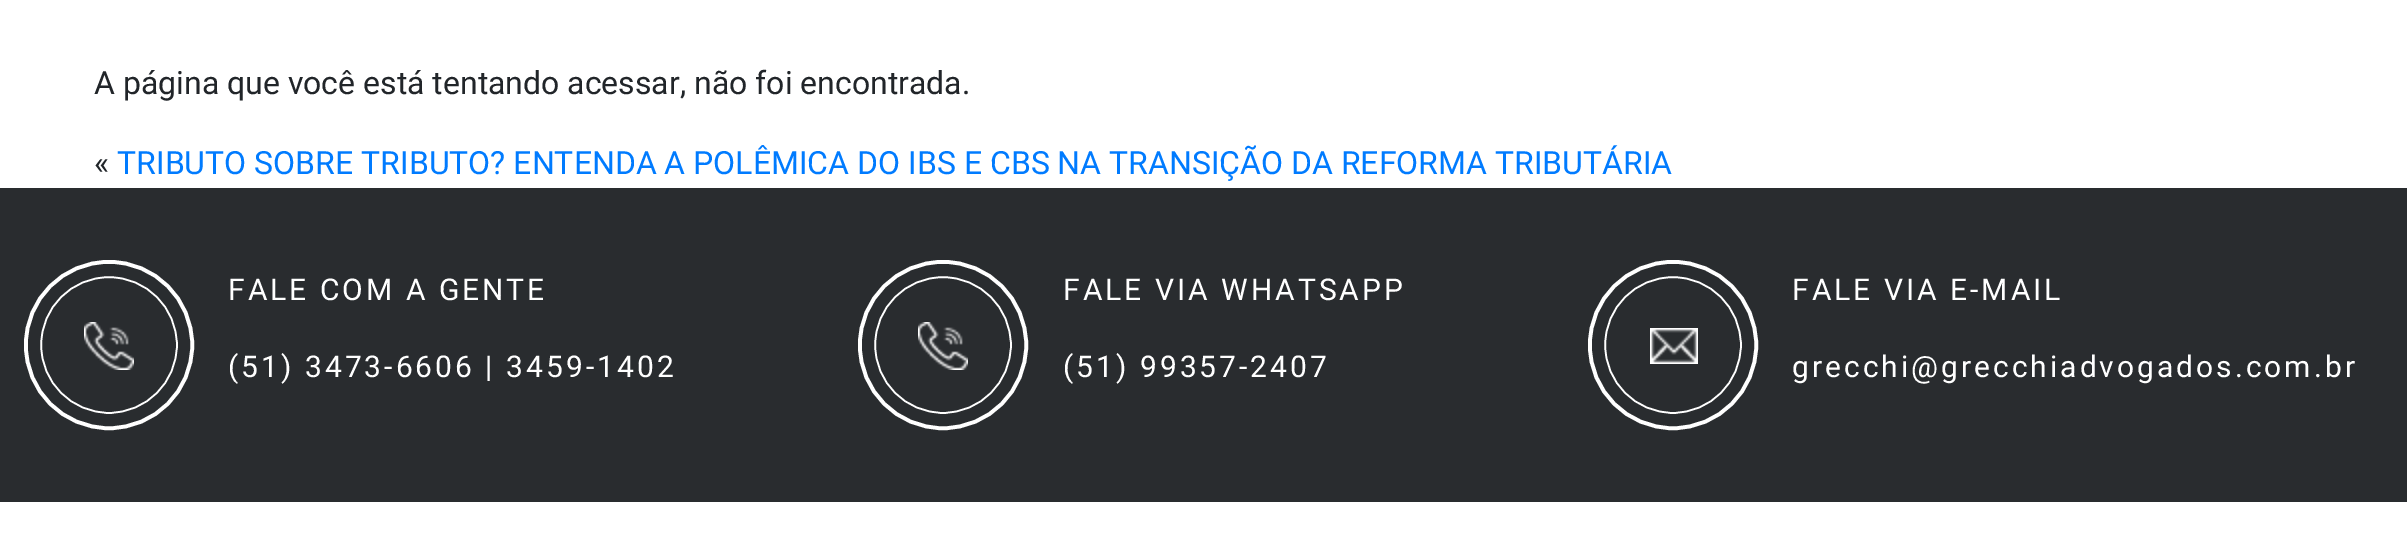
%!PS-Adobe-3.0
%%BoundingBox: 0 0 2407 553
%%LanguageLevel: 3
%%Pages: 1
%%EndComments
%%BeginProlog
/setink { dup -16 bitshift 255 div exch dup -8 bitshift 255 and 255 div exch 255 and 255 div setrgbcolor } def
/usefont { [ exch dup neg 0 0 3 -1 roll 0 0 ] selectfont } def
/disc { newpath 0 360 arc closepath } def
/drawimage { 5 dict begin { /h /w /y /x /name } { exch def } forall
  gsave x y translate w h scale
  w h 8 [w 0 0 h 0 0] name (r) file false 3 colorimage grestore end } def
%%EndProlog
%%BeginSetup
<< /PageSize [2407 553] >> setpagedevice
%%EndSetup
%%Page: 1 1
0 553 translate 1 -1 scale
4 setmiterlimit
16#FFFFFF setink
0 0 2407 553 rectfill
/Roboto-Regular 32 usefont
16#212529 setink
94 94 moveto (A página que você está tentando acessar, não foi encontrada.) show
94 174 moveto («) show
16#007BFF setink
117 174 moveto (TRIBUTO SOBRE TRIBUTO? ENTENDA A POLÊMICA DO IBS E CBS NA TRANSIÇÃO DA REFORMA TRIBUTÁRIA) show
16#292C2F setink
0 188 2407 314 rectfill
16#FFFFFF setink
16 setlinewidth
109 345 77 disc stroke
2 setlinewidth
109 345 68 disc stroke
(img1.raw) 84 322 50 48 drawimage
16#292C2F setink
12 setlinewidth
109 345 75 disc stroke
/Roboto-Regular 30 usefont
16#FFFFFF setink
228 300 moveto 3 0 (FALE COM A GENTE) ashow
228 377 moveto 3 0 (\(51\) 3473-6606 | 3459-1402) ashow
16 setlinewidth
943 345 77 disc stroke
2 setlinewidth
943 345 68 disc stroke
(img1.raw) 918 322 50 48 drawimage
16#292C2F setink
12 setlinewidth
943 345 75 disc stroke
16#FFFFFF setink
1063 300 moveto 3 0 (FALE VIA WHATSAPP) ashow
1063 377 moveto 3 0 (\(51\) 99357-2407) ashow
16 setlinewidth
1673 345 77 disc stroke
2 setlinewidth
1673 345 68 disc stroke
(img2.raw) 1650 328 48 36 drawimage
16#292C2F setink
12 setlinewidth
1673 345 75 disc stroke
16#FFFFFF setink
1792 300 moveto 3 0 (FALE VIA E-MAIL) ashow
1792 377 moveto 3 0 (grecchi@grecchiadvogados.com.br) ashow
showpage
%%EOF
